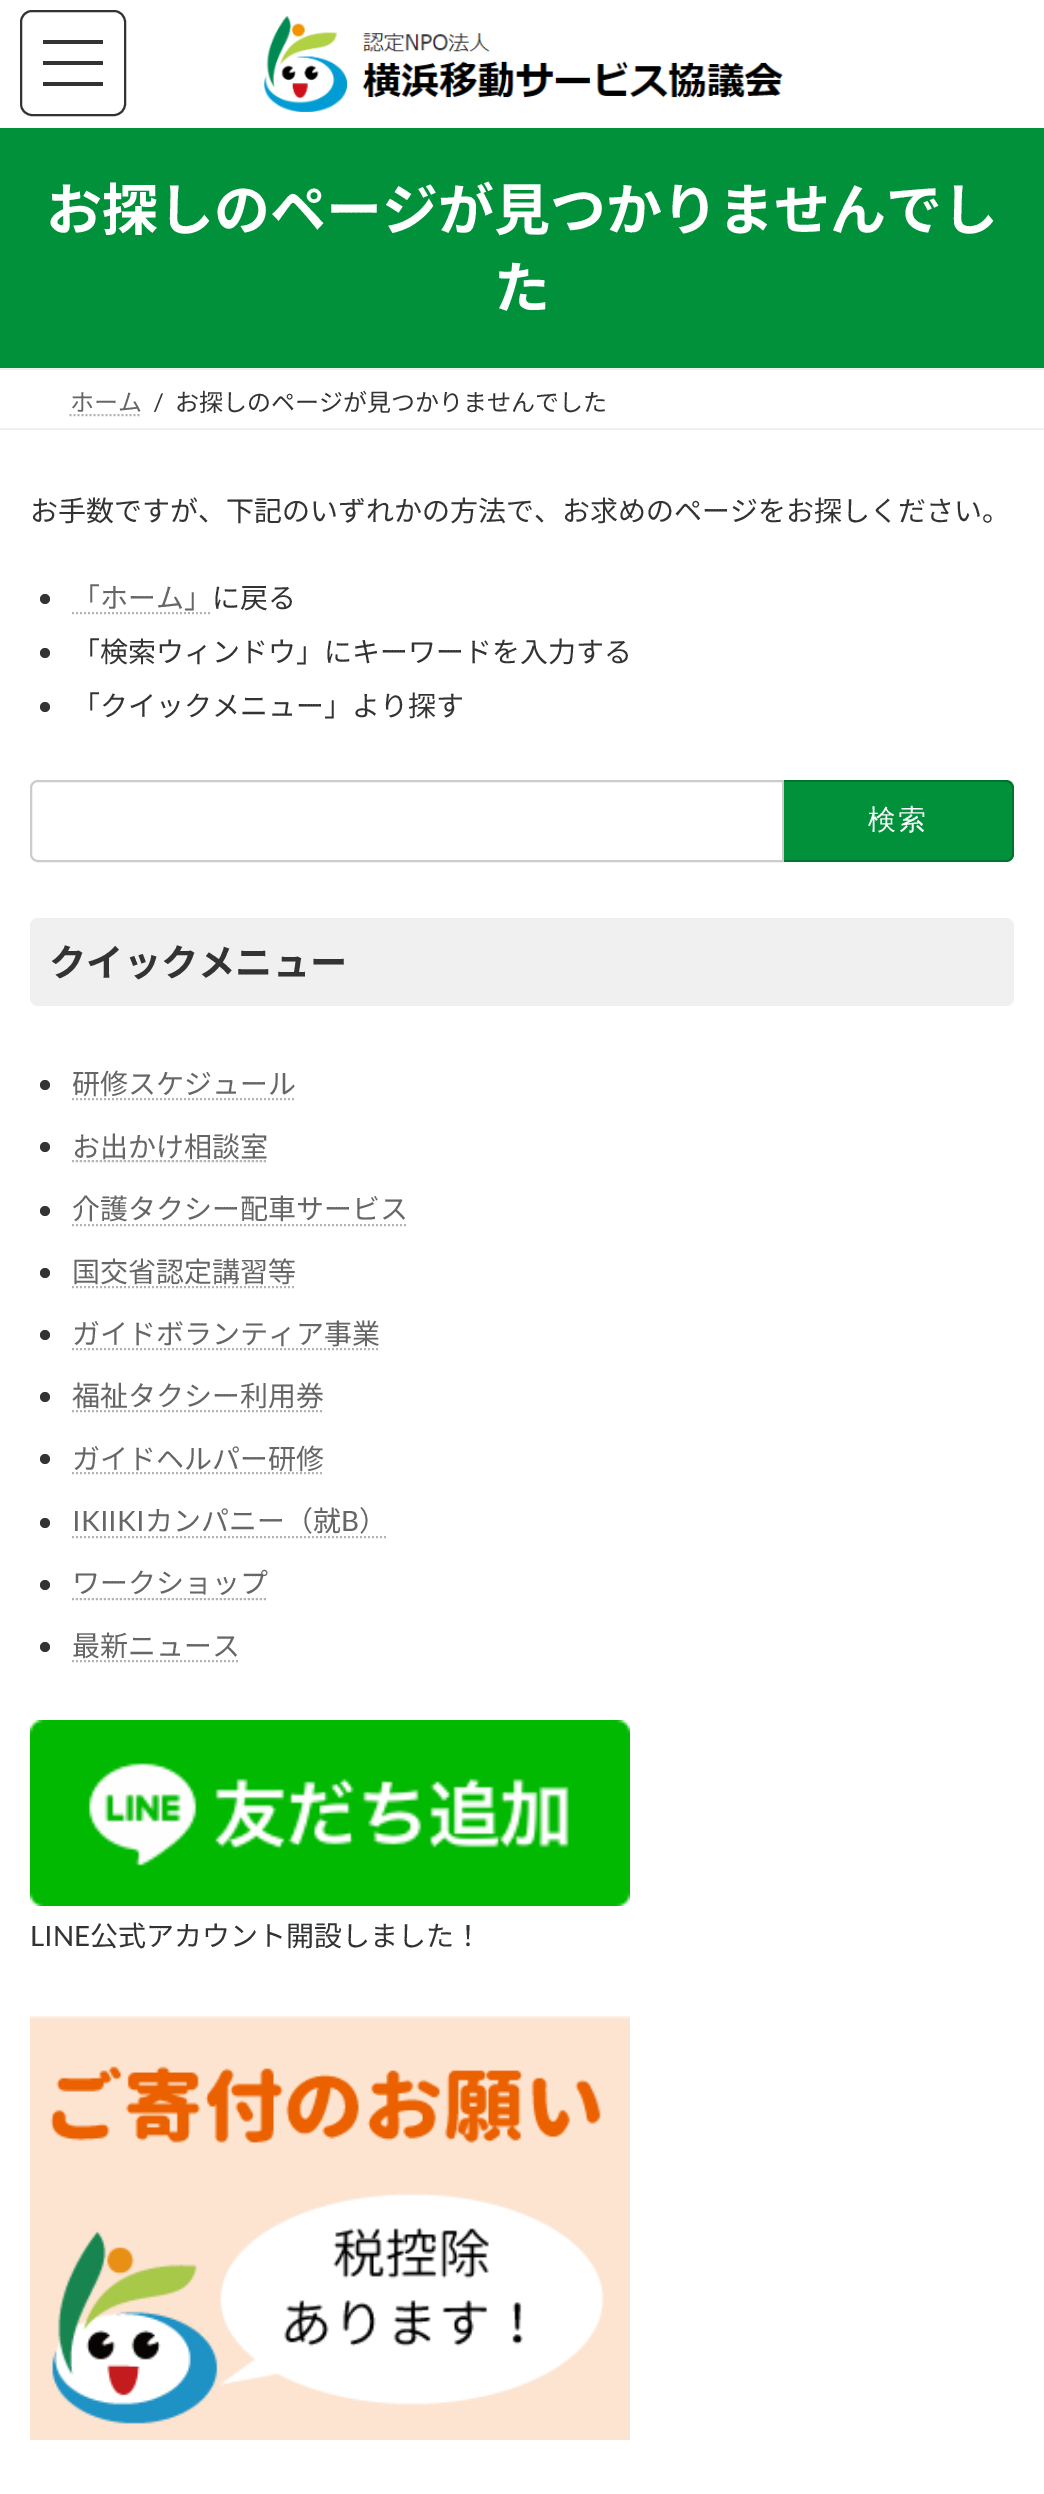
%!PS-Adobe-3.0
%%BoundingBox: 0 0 1044 2494
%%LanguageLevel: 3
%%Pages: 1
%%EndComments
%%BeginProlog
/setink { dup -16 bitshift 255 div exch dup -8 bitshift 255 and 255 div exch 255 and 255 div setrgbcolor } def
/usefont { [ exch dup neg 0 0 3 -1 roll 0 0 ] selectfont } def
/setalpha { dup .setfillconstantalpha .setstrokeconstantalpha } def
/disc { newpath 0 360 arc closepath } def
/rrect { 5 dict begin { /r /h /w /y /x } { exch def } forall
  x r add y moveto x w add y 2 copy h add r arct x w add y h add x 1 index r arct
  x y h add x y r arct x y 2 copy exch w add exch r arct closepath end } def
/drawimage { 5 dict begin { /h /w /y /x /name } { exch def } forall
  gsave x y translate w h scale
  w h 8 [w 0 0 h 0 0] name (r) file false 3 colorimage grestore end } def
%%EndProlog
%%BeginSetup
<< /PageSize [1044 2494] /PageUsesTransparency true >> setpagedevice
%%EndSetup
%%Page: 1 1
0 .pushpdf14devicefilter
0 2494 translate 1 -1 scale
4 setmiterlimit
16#FFFFFF setink
0 0 1044 2494 rectfill
[
    [43 40 60 4 16#333333]
    [43 61 60 4 16#333333]
    [43 82 60 4 16#333333]
] { aload pop setink rectfill } forall
2 setlinewidth
21 11 104 104 11 rrect stroke
(img1.raw) 264 16 519 96 drawimage
16#00913A setink
0 128 1044 240 rectfill
/NotoSansJP-Bold 56 usefont
16#FFFFFF setink
46 230 moveto (お探しのページが見つかりませんでし) show
494 308 moveto (た) show
16#F0F0F0 setink
0 368 1044 2 rectfill
0 428 1044 2 rectfill
/NotoSansJP-Regular 24 usefont
16#666666 setink
70 411 moveto (ホーム) show
16#B3B3B3 setink
[2 2] 0 setdash
69.5 415 moveto 141.5 415 lineto stroke
/Lato-Regular 24 usefont
16#333333 setink
154 411 moveto (/) show
/NotoSansJP-Regular 24 usefont
175 411 moveto (お探しのページが見つかりませんでした) show
/NotoSansJP-Regular 28 usefont
30 521 moveto (お手数ですが、下記のいずれかの方法で、お求めのページをお探しください。) show
45 599 5 disc fill
16#666666 setink
72 608 moveto (「ホーム」) show
16#B3B3B3 setink
72 613 moveto 212 613 lineto stroke
16#333333 setink
212 608 moveto (に戻る) show
45 653 5 disc fill
72 662 moveto (「検索ウィンドウ」にキーワードを入力する) show
45 707 5 disc fill
72 716 moveto (「クイックメニュー」より探す) show
16#CCCCCC setink
[] 0 setdash
38 781 moveto 783 781 lineto 783 861 lineto 38 861 lineto 34 861 31 858 31 854 curveto 31 788 lineto 31 784 34 781 38 781 curveto closepath stroke
16#00913A setink
784 780 moveto 1006 780 lineto 1010.5 780 1014 783.5 1014 788 curveto 1014 854 lineto 1014 858.5 1010.5 862 1006 862 curveto 784 862 lineto closepath fill
0.2 setalpha
16#000000 setink
784 780 moveto 1006 780 lineto 1010 780 1014 784 1014 788 curveto 1014 854 lineto 1014 858 1010 862 1006 862 curveto 784 862 lineto closepath 784 782 moveto 1006 782 lineto 1009 782 1012 785 1012 788 curveto 1012 854 lineto 1012 857 1009 860 1006 860 curveto 784 860 lineto closepath eofill
/WenQuanYiZenHei-Medium 28 usefont
1 setalpha
16#FFFFFF setink
868 829 moveto 2 0 (検索) ashow
16#F0F0F0 setink
30 918 984 88 8 rrect fill
/NotoSansJP-Bold 37.25 usefont
16#333333 setink
49 976 moveto (クイックメニュー) show
45 1085 5 disc fill
/NotoSansJP-Regular 28 usefont
16#666666 setink
72 1094 moveto (研修スケジュール) show
16#B3B3B3 setink
[2 2] 0 setdash
72 1099 moveto 296 1099 lineto stroke
16#333333 setink
45 1147 5 disc fill
16#666666 setink
72 1157 moveto (お出かけ相談室) show
16#B3B3B3 setink
72 1161 moveto 268 1161 lineto stroke
16#333333 setink
45 1211 5 disc fill
16#666666 setink
72 1219 moveto (介護タクシー配車サービス) show
16#B3B3B3 setink
72 1225 moveto 408 1225 lineto stroke
16#333333 setink
45 1273 5 disc fill
16#666666 setink
72 1282 moveto (国交省認定講習等) show
16#B3B3B3 setink
72 1287 moveto 296 1287 lineto stroke
16#333333 setink
45 1335 5 disc fill
16#666666 setink
72 1344 moveto (ガイドボランティア事業) show
16#B3B3B3 setink
72 1349 moveto 380 1349 lineto stroke
16#333333 setink
45 1397 5 disc fill
16#666666 setink
72 1406 moveto (福祉タクシー利用券) show
16#B3B3B3 setink
72 1411 moveto 324 1411 lineto stroke
16#333333 setink
45 1459 5 disc fill
16#666666 setink
72 1469 moveto (ガイドヘルパー研修) show
16#B3B3B3 setink
72 1473 moveto 324 1473 lineto stroke
16#333333 setink
45 1523 5 disc fill
/Lato-Regular 28 usefont
16#666666 setink
72 1531 moveto (IKIIKI) show
16#B3B3B3 setink
72 1537 moveto 386.5 1537 lineto stroke
/NotoSansJP-Regular 28 usefont
16#666666 setink
145 1531 moveto (カンパニー（就) show
/Lato-Regular 28 usefont
341 1531 moveto (B) show
/NotoSansJP-Regular 28 usefont
359 1531 moveto (）) show
16#333333 setink
45 1585 5 disc fill
16#666666 setink
72 1593 moveto (ワークショップ) show
16#B3B3B3 setink
72 1599 moveto 268 1599 lineto stroke
16#333333 setink
45 1647 5 disc fill
16#666666 setink
72 1656 moveto (最新ニュース) show
16#B3B3B3 setink
72 1661 moveto 240 1661 lineto stroke
(img2.raw) 30 1720 600 186 drawimage
/Lato-Regular 28 usefont
16#333333 setink
30 1946 moveto (LINE) show
/NotoSansJP-Regular 28 usefont
90 1946 moveto (公式アカウント開設しました！) show
(img3.raw) 30 2016 600 424 drawimage
.poppdf14devicefilter showpage
%%EOF
